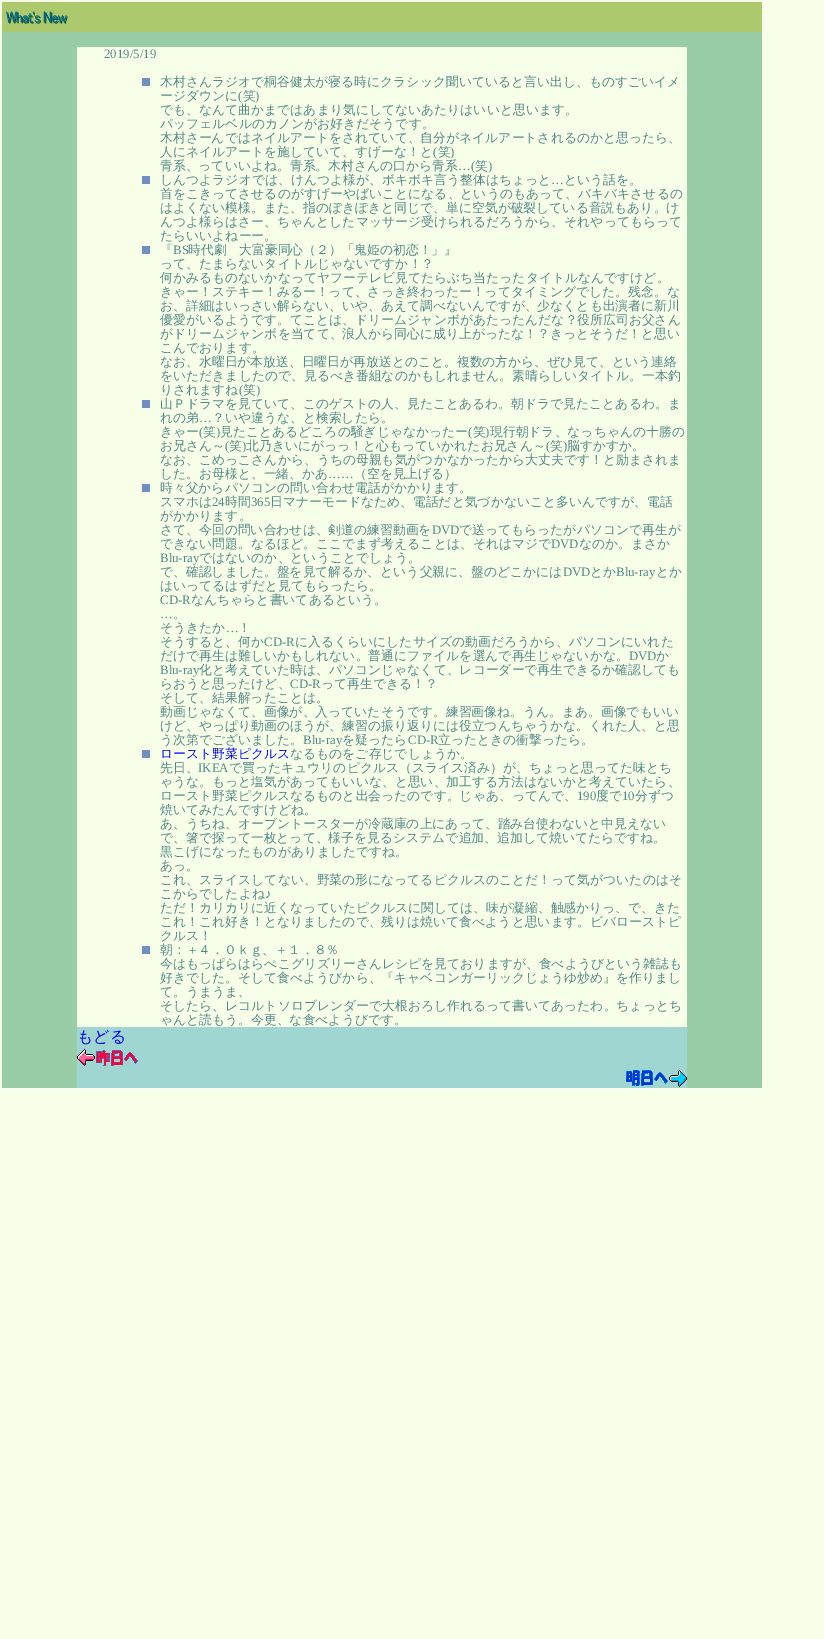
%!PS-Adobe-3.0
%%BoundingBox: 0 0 824 1639
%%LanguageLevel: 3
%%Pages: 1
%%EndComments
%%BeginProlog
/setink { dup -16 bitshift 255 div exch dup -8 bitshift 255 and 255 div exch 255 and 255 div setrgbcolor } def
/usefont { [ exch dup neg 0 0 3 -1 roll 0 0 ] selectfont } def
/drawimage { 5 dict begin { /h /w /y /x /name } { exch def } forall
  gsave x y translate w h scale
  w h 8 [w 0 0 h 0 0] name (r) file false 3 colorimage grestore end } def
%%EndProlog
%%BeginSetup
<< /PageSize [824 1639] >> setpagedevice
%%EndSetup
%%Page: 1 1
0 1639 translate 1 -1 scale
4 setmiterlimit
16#F8FFE8 setink
0 0 824 1639 rectfill
16#ADC96D setink
2 2 760 30 rectfill
(img1.raw) 6 11 62 13 drawimage
[
    [2 32 760 1056 16#98CDA7]
    [2 1088 760 1 16#FFFFFF]
    [77 47 610 980 16#F8FFE8]
] { aload pop setink rectfill } forall
/LiberationSerif-Regular 12.8 usefont
16#548989 setink
104 58 moveto (2019/5/19) show
16#708EBF setink
142 78 8 8 rectfill
/WenQuanYiZenHei-Medium 12.8 usefont
16#548989 setink
160 86 moveto (木村さんラジオで桐谷健太が寝る時にクラシック聞いていると言い出し、ものすごいイメ) show
160 100 moveto (ージダウンに) show
/LiberationSerif-Regular 12.8 usefont
238 100 moveto (\() show
/WenQuanYiZenHei-Medium 12.8 usefont
243 100 moveto (笑) show
/LiberationSerif-Regular 12.8 usefont
255 100 moveto (\)) show
/WenQuanYiZenHei-Medium 12.8 usefont
[
    [(でも、なんて曲かまではあまり気にしてないあたりはいいと思います。) 160 114]
    [(パッフェルベルのカノンがお好きだそうです。) 160 128]
    [(木村さーんではネイルアートをされていて、自分がネイルアートされるのかと思ったら、) 160 142]
    [(人にネイルアートを施していて、すげーな！と) 160 156]
] { aload pop moveto show } forall
/LiberationSerif-Regular 12.8 usefont
433 156 moveto (\() show
/WenQuanYiZenHei-Medium 12.8 usefont
438 156 moveto (笑) show
/LiberationSerif-Regular 12.8 usefont
450 156 moveto (\)) show
/WenQuanYiZenHei-Medium 12.8 usefont
160 170 moveto (青系、っていいよね。青系。木村さんの口から青系) show
/LiberationSerif-Regular 12.8 usefont
458 170 moveto (…\() show
/WenQuanYiZenHei-Medium 12.8 usefont
475 170 moveto (笑) show
/LiberationSerif-Regular 12.8 usefont
488 170 moveto (\)) show
16#708EBF setink
142 176 8 8 rectfill
/WenQuanYiZenHei-Medium 12.8 usefont
16#548989 setink
160 184 moveto (しんつよラジオでは、けんつよ様が、ボキボキ言う整体はちょっと) show
/LiberationSerif-Regular 12.8 usefont
551 184 moveto (…) show
/WenQuanYiZenHei-Medium 12.8 usefont
[
    [(という話を。) 564 184]
    [(首をこきってさせるのがすげーやばいことになる、というのもあって、バキバキさせるの) 160 198]
    [(はよくない模様。また、指のぽきぽきと同じで、単に空気が破裂している音説もあり。け) 160 212]
    [(んつよ様らはさー、ちゃんとしたマッサージ受けられるだろうから、それやってもらって) 160 226]
    [(たらいいよねーー。) 160 240]
] { aload pop moveto show } forall
16#708EBF setink
142 246 8 8 rectfill
16#548989 setink
160 254 moveto (『) show
/LiberationSerif-Regular 12.8 usefont
173 254 moveto (BS) show
/WenQuanYiZenHei-Medium 12.8 usefont
[
    [(時代劇　大富豪同心（２）「鬼姫の初恋！」』) 188 254]
    [(って、たまらないタイトルじゃないですか！？) 160 268]
    [(何かみるものないかなってヤフーテレビ見てたらぶち当たったタイトルなんですけど。) 160 282]
    [(きゃー！ステキー！みるー！って、さっき終わったー！ってタイミングでした。残念。な) 160 296]
    [(お、詳細はいっさい解らない、いや、あえて調べないんですが、少なくとも出演者に新川) 160 310]
    [(優愛がいるようです。てことは、ドリームジャンボがあたったんだな？役所広司お父さん) 160 324]
    [(がドリームジャンボを当てて、浪人から同心に成り上がったな！？きっとそうだ！と思い) 160 338]
    [(こんでおります。) 160 352]
    [(なお、水曜日が本放送、日曜日が再放送とのこと。複数の方から、ぜひ見て、という連絡) 160 366]
    [(をいただきましたので、見るべき番組なのかもしれません。素晴らしいタイトル。一本釣) 160 380]
    [(りされますね) 160 394]
] { aload pop moveto show } forall
/LiberationSerif-Regular 12.8 usefont
239 394 moveto (\() show
/WenQuanYiZenHei-Medium 12.8 usefont
243 394 moveto (笑) show
/LiberationSerif-Regular 12.8 usefont
256 394 moveto (\)) show
16#708EBF setink
142 400 8 8 rectfill
/WenQuanYiZenHei-Medium 12.8 usefont
16#548989 setink
160 408 moveto (山Ｐドラマを見ていて、このゲストの人、見たことあるわ。朝ドラで見たことあるわ。ま) show
160 422 moveto (れの弟) show
/LiberationSerif-Regular 12.8 usefont
199 422 moveto (…) show
/WenQuanYiZenHei-Medium 12.8 usefont
212 422 moveto (？いや違うな、と検索したら。) show
160 436 moveto (きゃー) show
/LiberationSerif-Regular 12.8 usefont
199 436 moveto (\() show
/WenQuanYiZenHei-Medium 12.8 usefont
203 436 moveto (笑) show
/LiberationSerif-Regular 12.8 usefont
216 436 moveto (\)) show
/WenQuanYiZenHei-Medium 12.8 usefont
220 436 moveto (見たことあるどころの騒ぎじゃなかったー) show
/LiberationSerif-Regular 12.8 usefont
468 436 moveto (\() show
/WenQuanYiZenHei-Medium 12.8 usefont
473 436 moveto (笑) show
/LiberationSerif-Regular 12.8 usefont
485 436 moveto (\)) show
/WenQuanYiZenHei-Medium 12.8 usefont
490 436 moveto (現行朝ドラ、なっちゃんの十勝の) show
160 450 moveto (お兄さん～) show
/LiberationSerif-Regular 12.8 usefont
225 450 moveto (\() show
/WenQuanYiZenHei-Medium 12.8 usefont
229 450 moveto (笑) show
/LiberationSerif-Regular 12.8 usefont
242 450 moveto (\)) show
/WenQuanYiZenHei-Medium 12.8 usefont
246 450 moveto (北乃きいにがっっ！と心もっていかれたお兄さん～) show
/LiberationSerif-Regular 12.8 usefont
546 450 moveto (\() show
/WenQuanYiZenHei-Medium 12.8 usefont
550 450 moveto (笑) show
/LiberationSerif-Regular 12.8 usefont
563 450 moveto (\)) show
/WenQuanYiZenHei-Medium 12.8 usefont
[
    [(脳すかすか。) 567 450]
    [(なお、こめっこさんから、うちの母親も気がつかなかったから大丈夫です！と励まされま) 160 464]
    [(した。お母様と、一緒、かあ) 160 478]
] { aload pop moveto show } forall
/LiberationSerif-Regular 12.8 usefont
328 478 moveto (……) show
/WenQuanYiZenHei-Medium 12.8 usefont
354 478 moveto (（空を見上げる）) show
16#708EBF setink
142 484 8 8 rectfill
16#548989 setink
160 492 moveto (時々父からパソコンの問い合わせ電話がかかります。) show
160 506 moveto (スマホは) show
/LiberationSerif-Regular 12.8 usefont
212 506 moveto (24) show
/WenQuanYiZenHei-Medium 12.8 usefont
225 506 moveto (時間) show
/LiberationSerif-Regular 12.8 usefont
251 506 moveto (365) show
/WenQuanYiZenHei-Medium 12.8 usefont
[
    [(日マナーモードなため、電話だと気づかないこと多いんですが、電話) 270 506]
    [(がかかります。) 160 520]
    [(さて、今回の問い合わせは、剣道の練習動画を) 160 534]
] { aload pop moveto show } forall
/LiberationSerif-Regular 12.8 usefont
432 534 moveto (DVD) show
/WenQuanYiZenHei-Medium 12.8 usefont
459 534 moveto (で送ってもらったがパソコンで再生が) show
160 548 moveto (できない問題。なるほど。ここでまず考えることは、それはマジで) show
/LiberationSerif-Regular 12.8 usefont
551 548 moveto (DVD) show
/WenQuanYiZenHei-Medium 12.8 usefont
579 548 moveto (なのか。まさか) show
/LiberationSerif-Regular 12.8 usefont
160 562 moveto (Blu-ray) show
/WenQuanYiZenHei-Medium 12.8 usefont
199 562 moveto (ではないのか、ということでしょう。) show
160 576 moveto (で、確認しました。盤を見て解るか、という父親に、盤のどこかには) show
/LiberationSerif-Regular 12.8 usefont
563 576 moveto (DVD) show
/WenQuanYiZenHei-Medium 12.8 usefont
590 576 moveto (とか) show
/LiberationSerif-Regular 12.8 usefont
616 576 moveto (Blu-ray) show
/WenQuanYiZenHei-Medium 12.8 usefont
656 576 moveto (とか) show
160 590 moveto (はいってるはずだと見てもらったら。) show
/LiberationSerif-Regular 12.8 usefont
160 604 moveto (CD-R) show
/WenQuanYiZenHei-Medium 12.8 usefont
191 604 moveto (なんちゃらと書いてあるという。) show
/LiberationSerif-Regular 12.8 usefont
160 618 moveto (…) show
/WenQuanYiZenHei-Medium 12.8 usefont
173 618 moveto (。) show
160 632 moveto (そうきたか) show
/LiberationSerif-Regular 12.8 usefont
226 632 moveto (…) show
/WenQuanYiZenHei-Medium 12.8 usefont
238 632 moveto (！) show
160 646 moveto (そうすると、何か) show
/LiberationSerif-Regular 12.8 usefont
264 646 moveto (CD-R) show
/WenQuanYiZenHei-Medium 12.8 usefont
295 646 moveto (に入るくらいにしたサイズの動画だろうから、パソコンにいれた) show
160 660 moveto (だけで再生は難しいかもしれない。普通にファイルを選んで再生じゃないかな。) show
/LiberationSerif-Regular 12.8 usefont
629 660 moveto (DVD) show
/WenQuanYiZenHei-Medium 12.8 usefont
656 660 moveto (か) show
/LiberationSerif-Regular 12.8 usefont
160 674 moveto (Blu-ray) show
/WenQuanYiZenHei-Medium 12.8 usefont
199 674 moveto (化と考えていた時は、パソコンじゃなくて、レコーダーで再生できるか確認しても) show
160 688 moveto (らおうと思ったけど、) show
/LiberationSerif-Regular 12.8 usefont
290 688 moveto (CD-R) show
/WenQuanYiZenHei-Medium 12.8 usefont
[
    [(って再生できる！？) 321 688]
    [(そして、結果解ったことは。) 160 702]
    [(動画じゃなくて、画像が、入っていたそうです。練習画像ね。うん。まあ。画像でもいい) 160 716]
    [(けど、やっぱり動画のほうが、練習の振り返りには役立つんちゃうかな。くれた人、と思) 160 730]
    [(う次第でございました。) 160 744]
] { aload pop moveto show } forall
/LiberationSerif-Regular 12.8 usefont
303 744 moveto (Blu-ray) show
/WenQuanYiZenHei-Medium 12.8 usefont
342 744 moveto (を疑ったら) show
/LiberationSerif-Regular 12.8 usefont
408 744 moveto (CD-R) show
/WenQuanYiZenHei-Medium 12.8 usefont
438 744 moveto (立ったときの衝撃ったら。) show
16#708EBF setink
142 750 8 8 rectfill
16#0000FF setink
160 758 moveto (ロースト野菜ピクルス) show
16#548989 setink
290 758 moveto (なるものをご存じでしょうか。) show
160 772 moveto (先日、) show
/LiberationSerif-Regular 12.8 usefont
198 772 moveto (IKEA) show
/WenQuanYiZenHei-Medium 12.8 usefont
[
    [(で買ったキュウリのピクルス（スライス済み）が、ちょっと思ってた味とち) 229 772]
    [(ゃうな。もっと塩気があってもいいな、と思い、加工する方法はないかと考えていたら、) 160 786]
    [(ロースト野菜ピクルスなるものと出会ったのです。じゃあ、ってんで、) 160 800]
] { aload pop moveto show } forall
/LiberationSerif-Regular 12.8 usefont
577 800 moveto (190) show
/WenQuanYiZenHei-Medium 12.8 usefont
596 800 moveto (度で) show
/LiberationSerif-Regular 12.8 usefont
622 800 moveto (10) show
/WenQuanYiZenHei-Medium 12.8 usefont
[
    [(分ずつ) 635 800]
    [(焼いてみたんですけどね。) 160 814]
    [(あ、うちね、オーブントースターが冷蔵庫の上にあって、踏み台使わないと中見えない) 160 828]
    [(で、箸で探って一枚とって、様子を見るシステムで追加、追加して焼いてたらですね。) 160 842]
    [(黒こげになったものがありましたですね。) 160 856]
    [(あっ。) 160 870]
    [(これ、スライスしてない、野菜の形になってるピクルスのことだ！って気がついたのはそ) 160 884]
    [(こからでしたよね) 160 898]
] { aload pop moveto show } forall
/LiberationSerif-Regular 12.8 usefont
265 898 moveto (♪) show
/WenQuanYiZenHei-Medium 12.8 usefont
[
    [(ただ！カリカリに近くなっていたピクルスに関しては、味が凝縮、触感かりっ、で、きた) 160 912]
    [(これ！これ好き！となりましたので、残りは焼いて食べようと思います。ビバローストピ) 160 926]
    [(クルス！) 160 940]
] { aload pop moveto show } forall
16#708EBF setink
142 946 8 8 rectfill
16#548989 setink
[
    [(朝：＋４．０ｋｇ、＋１．８％) 160 954]
    [(今はもっぱらはらぺこグリズリーさんレシピを見ておりますが、食べようびという雑誌も) 160 968]
    [(好きでした。そして食べようびから、『キャベコンガーリックじょうゆ炒め』を作りまし) 160 982]
    [(て。うまうま、) 160 996]
    [(そしたら、レコルトソロブレンダーで大根おろし作れるって書いてあったわ。ちょっとち) 160 1010]
    [(ゃんと読もう。今更、な食べようびです。) 160 1024]
] { aload pop moveto show } forall
16#A0D6D1 setink
77 1027 610 61 rectfill
/WenQuanYiZenHei-Medium 16 usefont
16#0000FF setink
77 1042 moveto (もどる) show
(img2.raw) 77 1049 61 17 drawimage
(img3.raw) 626 1070 61 17 drawimage
showpage
%%EOF
